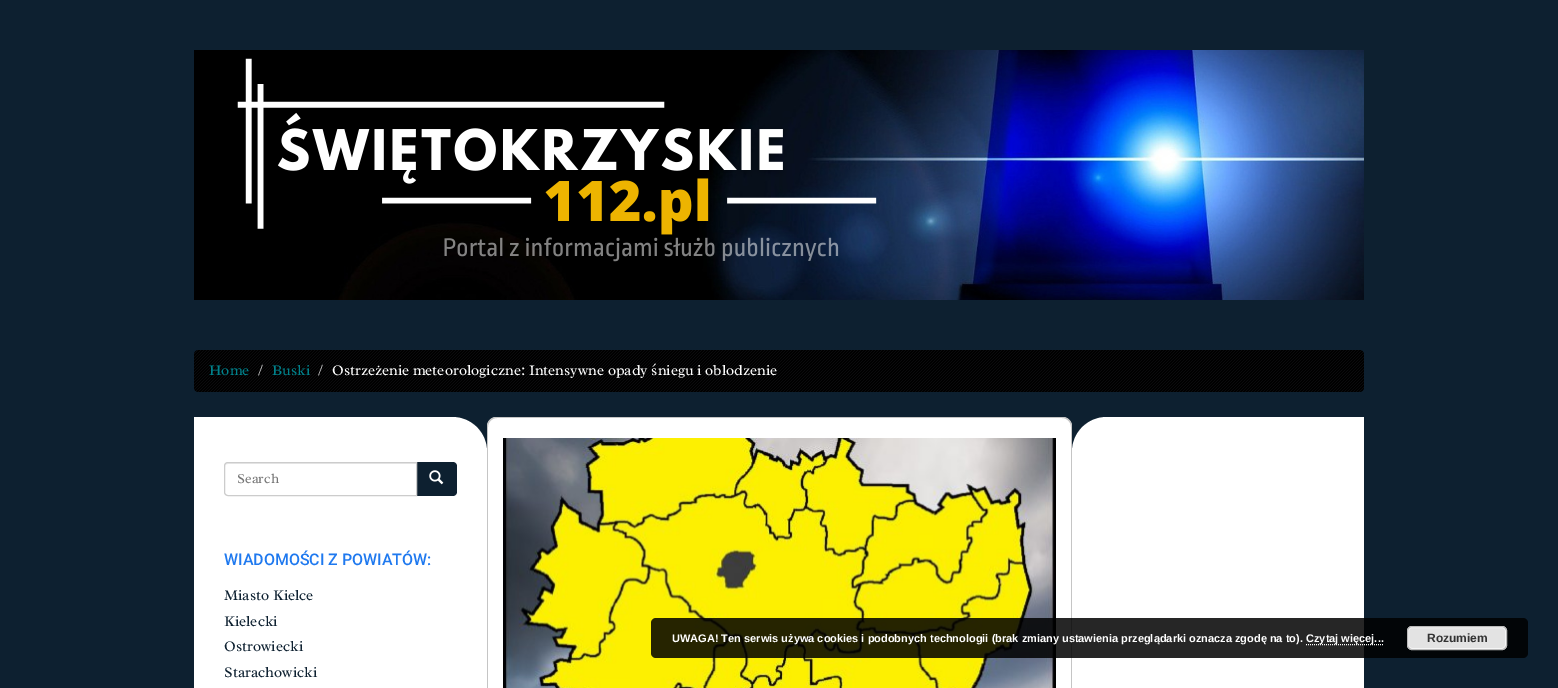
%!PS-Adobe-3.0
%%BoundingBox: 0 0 1558 688
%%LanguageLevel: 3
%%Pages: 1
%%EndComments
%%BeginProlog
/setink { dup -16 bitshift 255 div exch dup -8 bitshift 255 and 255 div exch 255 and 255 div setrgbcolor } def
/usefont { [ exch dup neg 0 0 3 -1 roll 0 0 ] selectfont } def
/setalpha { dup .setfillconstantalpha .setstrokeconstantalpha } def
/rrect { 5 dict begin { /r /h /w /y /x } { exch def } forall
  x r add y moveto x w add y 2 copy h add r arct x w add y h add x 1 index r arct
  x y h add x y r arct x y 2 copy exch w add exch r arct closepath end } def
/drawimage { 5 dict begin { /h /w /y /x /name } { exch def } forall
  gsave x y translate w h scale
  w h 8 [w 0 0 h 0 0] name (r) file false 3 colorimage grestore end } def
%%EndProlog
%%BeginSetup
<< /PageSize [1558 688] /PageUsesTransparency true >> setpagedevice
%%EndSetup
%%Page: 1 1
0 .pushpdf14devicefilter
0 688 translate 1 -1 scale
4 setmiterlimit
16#0D2030 setink
0 0 1558 688 rectfill
(img1.raw) 194 50 1170 250 drawimage
16#000000 setink
194 350 1170 42 4 rrect fill
(img2.raw) 194 350 1170 42 drawimage
/Radley-Regular 15 usefont
16#00828C setink
209 375 moveto (Home) show
16#CCCCCC setink
258 375 moveto (/) show
16#00828C setink
272 375 moveto (Buski) show
16#CCCCCC setink
318 375 moveto (/) show
16#FFFFFF setink
332 375 moveto (Ostrzeżenie meteorologiczne: Intensywne opady śniegu i oblodzenie) show
194 417 moveto 452 417 lineto 471.5 417 487 432.5 487 452 curveto 487 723 lineto 194 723 lineto closepath fill
16#0D2030 setink
416 462 moveto 453 462 lineto 455 462 457 464 457 466 curveto 457 492 lineto 457 494 455 496 453 496 curveto 416 496 lineto closepath fill
16#FFFFFF setink
228 462 moveto 417 462 lineto 417 496 lineto 228 496 lineto 226 496 224 494 224 492 curveto 224 466 lineto 224 464 226 462 228 462 curveto closepath fill
16#ECECEC setink
228 464 moveto 416 464 lineto 416 463 lineto 228 463 lineto 226 463 225 465 225 467 curveto 225 465 226 464 228 464 curveto closepath fill
16#CCCCCC setink
228 462.5 moveto 416.5 462.5 lineto 416.5 495.5 lineto 228 495.5 lineto 226 495.5 224.5 494 224.5 492 curveto 224.5 466 lineto 224.5 464 226 462.5 228 462.5 curveto closepath stroke
/Radley-Regular 14 usefont
16#777777 setink
237 483 moveto (Search) show
(img3.raw) 429 470 15 15 drawimage
/Roboto-Medium 16 usefont
16#1F79EF setink
224 565 moveto (WIADOMOŚCI Z POWIATÓW:) show
/Radley-Regular 15 usefont
16#0D2030 setink
[
    [(Miasto Kielce) 224 600]
    [(Kielecki) 224 626]
    [(Ostrowiecki) 224 651]
    [(Starachowicki) 224 677]
] { aload pop moveto show } forall
16#FFFFFF setink
497 417 moveto 1062 417 lineto 1067.5 417 1072 421.5 1072 427 curveto 1072 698 lineto 487 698 lineto 487 427 lineto 487 421.5 491.5 417 497 417 curveto closepath fill
16#C5C5C5 setink
497 417 moveto 1062 417 lineto 1068 417 1072 421 1072 427 curveto 1072 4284 lineto 487 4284 lineto 487 427 lineto 487 421 491 417 497 417 curveto closepath 497 418 moveto 1062 418 lineto 1067 418 1071 422 1071 427 curveto 1071 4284 lineto 488 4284 lineto 488 427 lineto 488 422 492 418 497 418 curveto closepath eofill
(img4.raw) 503 438 553 250 drawimage
16#FFFFFF setink
1107 417 moveto 1364 417 lineto 1364 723 lineto 1072 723 lineto 1072 452 lineto 1072 432.5 1087.5 417 1107 417 curveto closepath fill
0.85 setalpha
16#000000 setink
651 618 877 40 5 rrect fill
/LiberationSans-Bold 11 usefont
1 setalpha
16#FFFFFF setink
672 642 moveto (UWAGA! Ten serwis używa cookies i podobnych technologii \(brak zmiany ustawienia przeglądarki oznacza zgodę na to\).) show
[1 1] 0 setdash
1306 644.5 moveto 1384 644.5 lineto stroke
1306 642 moveto (Czytaj więcej...) show
16#E3E3E3 setink
1407 626 100 24 5 rrect fill
16#F6F6F6 setink
[] 0 setdash
1408.5 627.5 97 21 3.5 rrect stroke
16#BBBBBB setink
1407.5 626.5 99 23 4.5 rrect stroke
/LiberationSans-Bold 12 usefont
16#333333 setink
1427 642 moveto (Rozumiem) show
.poppdf14devicefilter showpage
%%EOF
